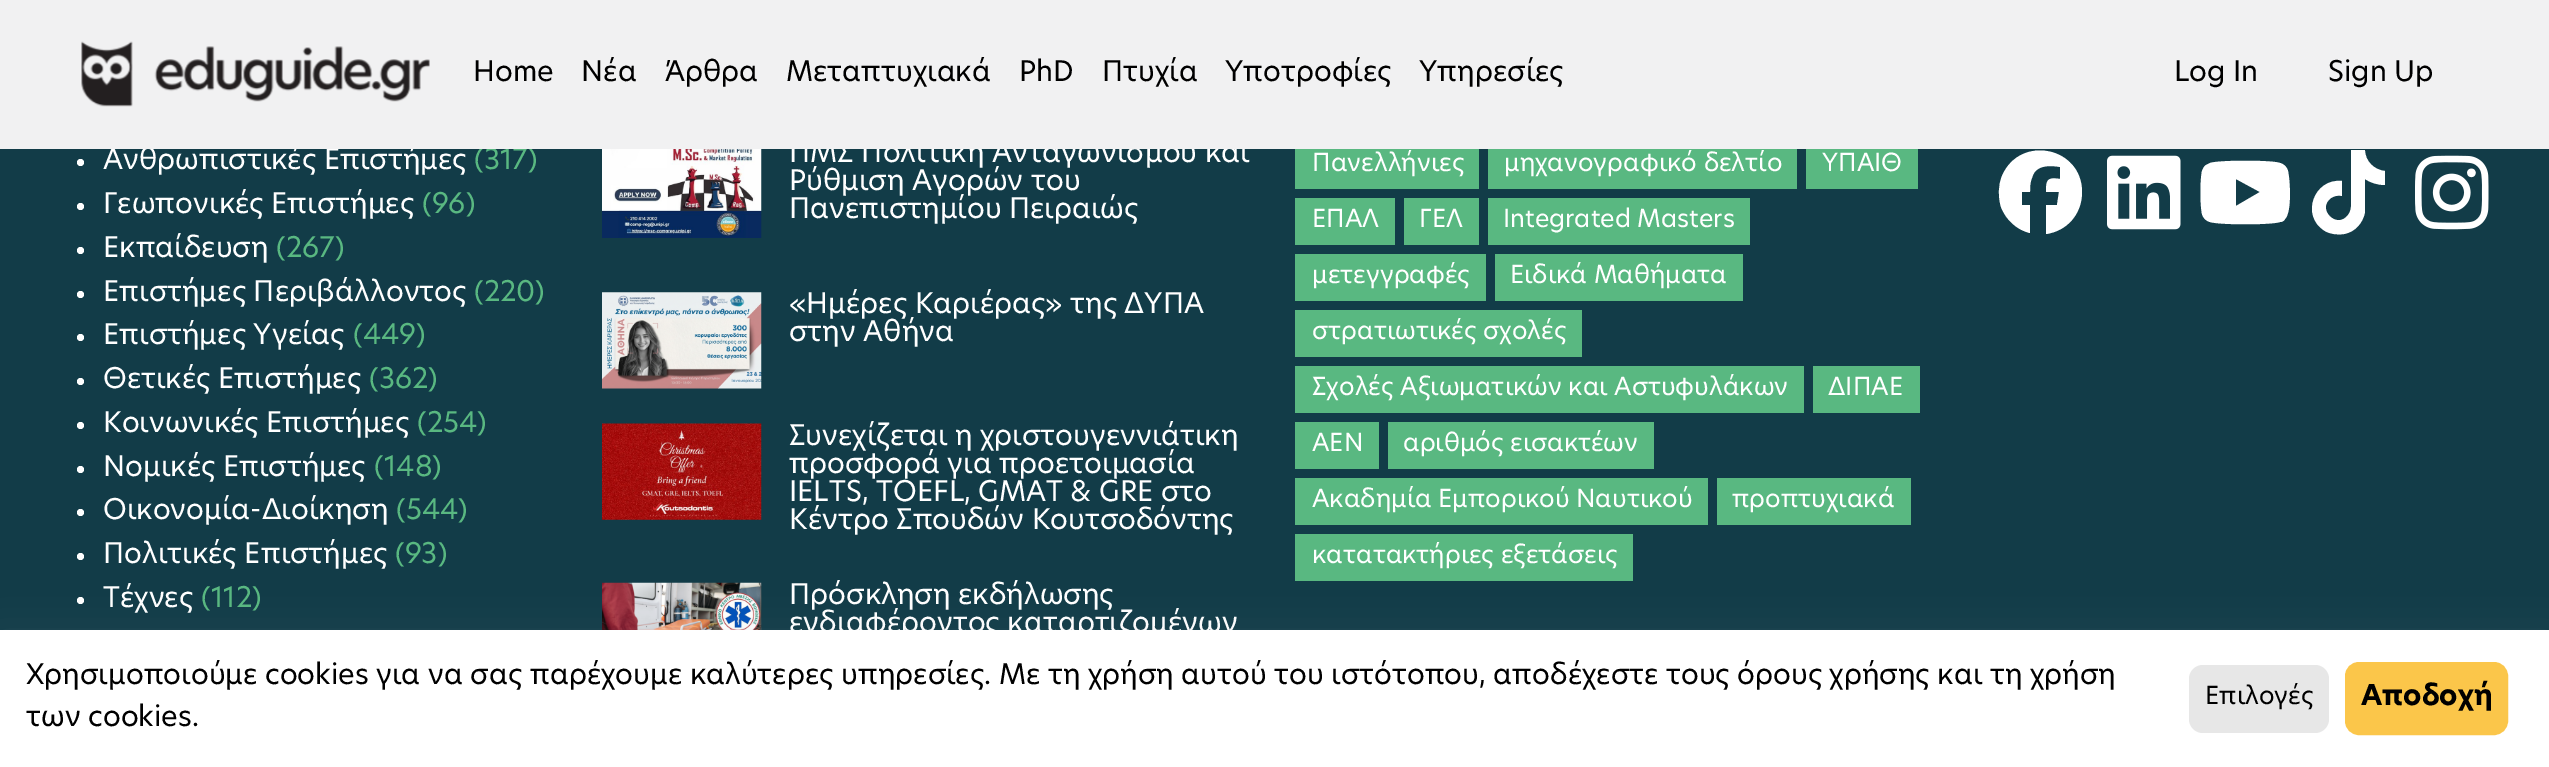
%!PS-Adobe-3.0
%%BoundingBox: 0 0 2549 767
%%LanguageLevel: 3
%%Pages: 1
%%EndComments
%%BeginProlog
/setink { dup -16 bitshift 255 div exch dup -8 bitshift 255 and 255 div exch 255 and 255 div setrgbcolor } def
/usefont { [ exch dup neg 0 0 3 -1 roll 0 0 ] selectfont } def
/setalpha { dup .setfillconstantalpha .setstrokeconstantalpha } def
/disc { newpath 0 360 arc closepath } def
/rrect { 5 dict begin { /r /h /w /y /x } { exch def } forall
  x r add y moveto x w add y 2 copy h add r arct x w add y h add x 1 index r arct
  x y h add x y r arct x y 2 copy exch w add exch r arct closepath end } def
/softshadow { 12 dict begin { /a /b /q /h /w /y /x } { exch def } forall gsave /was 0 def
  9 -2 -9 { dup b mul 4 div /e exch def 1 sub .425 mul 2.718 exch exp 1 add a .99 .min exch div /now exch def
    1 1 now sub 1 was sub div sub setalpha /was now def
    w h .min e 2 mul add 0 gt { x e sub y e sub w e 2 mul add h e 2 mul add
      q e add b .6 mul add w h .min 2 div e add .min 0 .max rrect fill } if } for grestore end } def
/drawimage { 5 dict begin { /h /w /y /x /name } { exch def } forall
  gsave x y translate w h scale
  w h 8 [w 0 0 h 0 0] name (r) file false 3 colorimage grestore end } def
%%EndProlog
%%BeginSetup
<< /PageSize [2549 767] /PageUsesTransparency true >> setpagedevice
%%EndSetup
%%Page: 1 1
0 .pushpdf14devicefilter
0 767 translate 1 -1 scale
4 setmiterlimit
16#123C48 setink
0 0 2549 767 rectfill
/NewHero-Regular 28 usefont
16#FFFFFF setink
103 169 moveto (Ανθρωπιστικές Επιστήμες) show
16#59B881 setink
474 169 moveto (\(317\)) show
16#FFFFFF setink
789 162 moveto (ΠΜΣ Πολιτική Ανταγωνισμού και) show
16#F1F1F2 setink
0 0 2549 149 rectfill
(img1.raw) 81 41 349 66 drawimage
16#000000 setink
[
    [(Home) 473 81]
    [(Νέα) 581 81]
    [(Άρθρα) 665 81]
    [(Μεταπτυχιακά) 786 81]
    [(PhD) 1019 81]
    [(Πτυχία) 1102 81]
    [(Υποτροφίες) 1225 81]
    [(Υπηρεσίες) 1419 81]
    [(Log In) 2174 81]
    [(Sign Up) 2328 81]
] { aload pop moveto show } forall
16#FFFFFF setink
80.5 162.5 3.5 disc fill
80.5 206.5 3.5 disc fill
103 213 moveto (Γεωπονικές Επιστήμες) show
16#59B881 setink
422 213 moveto (\(96\)) show
16#FFFFFF setink
80.5 250.5 3.5 disc fill
103 257 moveto (Εκπαίδευση) show
16#59B881 setink
276 257 moveto (\(267\)) show
16#FFFFFF setink
80.5 294.5 3.5 disc fill
103 301 moveto (Επιστήμες Περιβάλλοντος) show
16#59B881 setink
474 301 moveto (\(220\)) show
16#FFFFFF setink
80.5 337.5 3.5 disc fill
103 344 moveto (Επιστήμες Υγείας) show
16#59B881 setink
353 344 moveto (\(449\)) show
16#FFFFFF setink
80.5 381.5 3.5 disc fill
103 388 moveto (Θετικές Επιστήμες) show
16#59B881 setink
369 388 moveto (\(362\)) show
16#FFFFFF setink
80.5 425.5 3.5 disc fill
103 432 moveto (Κοινωνικές Επιστήμες) show
16#59B881 setink
417 432 moveto (\(254\)) show
16#FFFFFF setink
80.5 469.5 3.5 disc fill
103 476 moveto (Νομικές Επιστήμες) show
16#59B881 setink
374 476 moveto (\(148\)) show
16#FFFFFF setink
80.5 512.5 3.5 disc fill
103 519 moveto (Οικονομία-Διοίκηση) show
16#59B881 setink
396 519 moveto (\(544\)) show
16#FFFFFF setink
80.5 556.5 3.5 disc fill
103 563 moveto (Πολιτικές Επιστήμες) show
16#59B881 setink
395 563 moveto (\(93\)) show
16#FFFFFF setink
80.5 600.5 3.5 disc fill
103 607 moveto (Τέχνες) show
16#59B881 setink
201 607 moveto (\(112\)) show
(img2.raw) 602 149 160 89 drawimage
16#FFFFFF setink
789 190 moveto (Ρύθμιση Αγορών του) show
789 218 moveto (Πανεπιστημίου Πειραιώς) show
(img3.raw) 602 292 160 97 drawimage
789 313 moveto («Ημέρες Καριέρας» της ΔΥΠΑ) show
789 341 moveto (στην Αθήνα) show
(img4.raw) 602 423 160 97 drawimage
[
    [(Συνεχίζεται η χριστουγεννιάτικη) 789 445]
    [(προσφορά για προετοιμασία) 789 473]
    [(IELTS, TOEFL, GMAT & GRE στο) 789 501]
    [(Κέντρο Σπουδών Κουτσοδόντης) 789 529]
] { aload pop moveto show } forall
(img5.raw) 602 582 160 48 drawimage
789 604 moveto (Πρόσκληση εκδήλωσης) show
789 632 moveto (ενδιαφέροντος καταρτιζομένων) show
16#59B881 setink
1295 149 184 40 rectfill
/NewHero-Regular 24.5 usefont
16#FFFFFF setink
1312 171 moveto (Πανελλήνιες) show
16#59B881 setink
1488 149 309 40 rectfill
16#FFFFFF setink
1504 171 moveto (μηχανογραφικό δελτίο) show
16#59B881 setink
1806 149 112 40 rectfill
16#FFFFFF setink
1822 171 moveto (ΥΠΑΙΘ) show
16#59B881 setink
1295 198 100 47 rectfill
16#FFFFFF setink
1312 227 moveto (ΕΠΑΛ) show
16#59B881 setink
1404 198 75 47 rectfill
16#FFFFFF setink
1419 227 moveto (ΓΕΛ) show
16#59B881 setink
1488 198 262 47 rectfill
16#FFFFFF setink
1503 227 moveto (Integrated Masters) show
16#59B881 setink
1295 254 191 47 rectfill
16#FFFFFF setink
1312 283 moveto (μετεγγραφές) show
16#59B881 setink
1495 254 248 47 rectfill
16#FFFFFF setink
1510 283 moveto (Ειδικά Μαθήματα) show
16#59B881 setink
1295 310 287 47 rectfill
16#FFFFFF setink
1312 339 moveto (στρατιωτικές σχολές) show
16#59B881 setink
1295 366 509 47 rectfill
16#FFFFFF setink
1312 395 moveto (Σχολές Αξιωματικών και Αστυφυλάκων) show
16#59B881 setink
1813 366 107 47 rectfill
16#FFFFFF setink
1828 395 moveto (ΔΙΠΑΕ) show
16#59B881 setink
1295 422 84 47 rectfill
16#FFFFFF setink
1312 451 moveto (ΑΕΝ) show
16#59B881 setink
1388 422 266 47 rectfill
16#FFFFFF setink
1403 451 moveto (αριθμός εισακτέων) show
16#59B881 setink
1295 478 413 47 rectfill
16#FFFFFF setink
1312 507 moveto (Ακαδημία Εμπορικού Ναυτικού) show
16#59B881 setink
1717 478 194 47 rectfill
16#FFFFFF setink
1732 507 moveto (προπτυχιακά) show
16#59B881 setink
1295 534 338 47 rectfill
16#FFFFFF setink
1312 563 moveto (κατατακτήριες εξετάσεις) show
2082 192 moveto 2082 147 2020 134 2002 176 curveto 1998 186 1998 197 2001 207 curveto 2006 220 2017 230 2030 233 curveto 2030 205 lineto 2022 205 lineto 2022 192 lineto 2030 192 lineto 2030 188 2030 182 2032 178 curveto 2035 165 2049 165 2060 167 curveto 2060 179 lineto 2047 177 2046 180 2046 192 curveto 2059 192 lineto 2057 205 lineto 2046 205 lineto 2046 234 lineto 2067 231 2082 214 2082 192 curveto closepath fill
(img6.raw) 2107 155 74 75 drawimage
2288 171 moveto 2287 167 2284 164 2280 163 curveto 2272 160 2219 160 2210 163 curveto 2206 165 lineto 2204 166 2203 169 2202 171 curveto 2200 179 2200 206 2202 214 curveto 2203 218 2206 221 2210 222 curveto 2220 225 2271 225 2280 222 curveto 2282 222 2284 221 2285 219 curveto 2292 212 2290 180 2288 171 curveto closepath 2236 206 moveto 2236 179 lineto 2236 206 lineto 2236 179 lineto 2260 192 lineto closepath fill
2385 185 moveto 2378 185 2371 183 2365 179 curveto 2365 212 lineto 2363 223 2355 232 2344 234 curveto 2337 235 2330 234 2325 231 curveto 2300 216 2314 178 2342 181 curveto 2342 196 lineto 2338 195 2334 196 2331 198 curveto 2316 209 2337 230 2348 215 curveto 2352 210 2351 204 2351 198 curveto 2351 150 lineto 2365 150 lineto 2365 161 2374 170 2385 171 curveto closepath fill
(img7.raw) 2415 155 74 75 drawimage
16#959DA5 setink
0 644 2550 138 0 21 0.2 softshadow
16#FFFFFF setink
0 630 2549 137 rectfill
/NewHero-Regular 28 usefont
16#000000 setink
26 684 moveto (Χρησιμοποιούμε cookies για να σας παρέχουμε καλύτερες υπηρεσίες. Με τη χρήση αυτού του ιστότοπου, αποδέχεστε τους όρους χρήσης και τη χρήση) show
26 726 moveto (των cookies.) show
16#E7E7E7 setink
2189 665 140 68 14 rrect fill
/NewHero-Regular 24.5 usefont
16#000000 setink
2205 704 moveto (Επιλογές) show
16#FBC64A setink
2346 663 161 71 13 rrect gsave fill grestore
2 setlinewidth
stroke
/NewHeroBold-Bold 28 usefont
16#000000 setink
2361 705 moveto (Αποδοχή) show
.poppdf14devicefilter showpage
%%EOF
